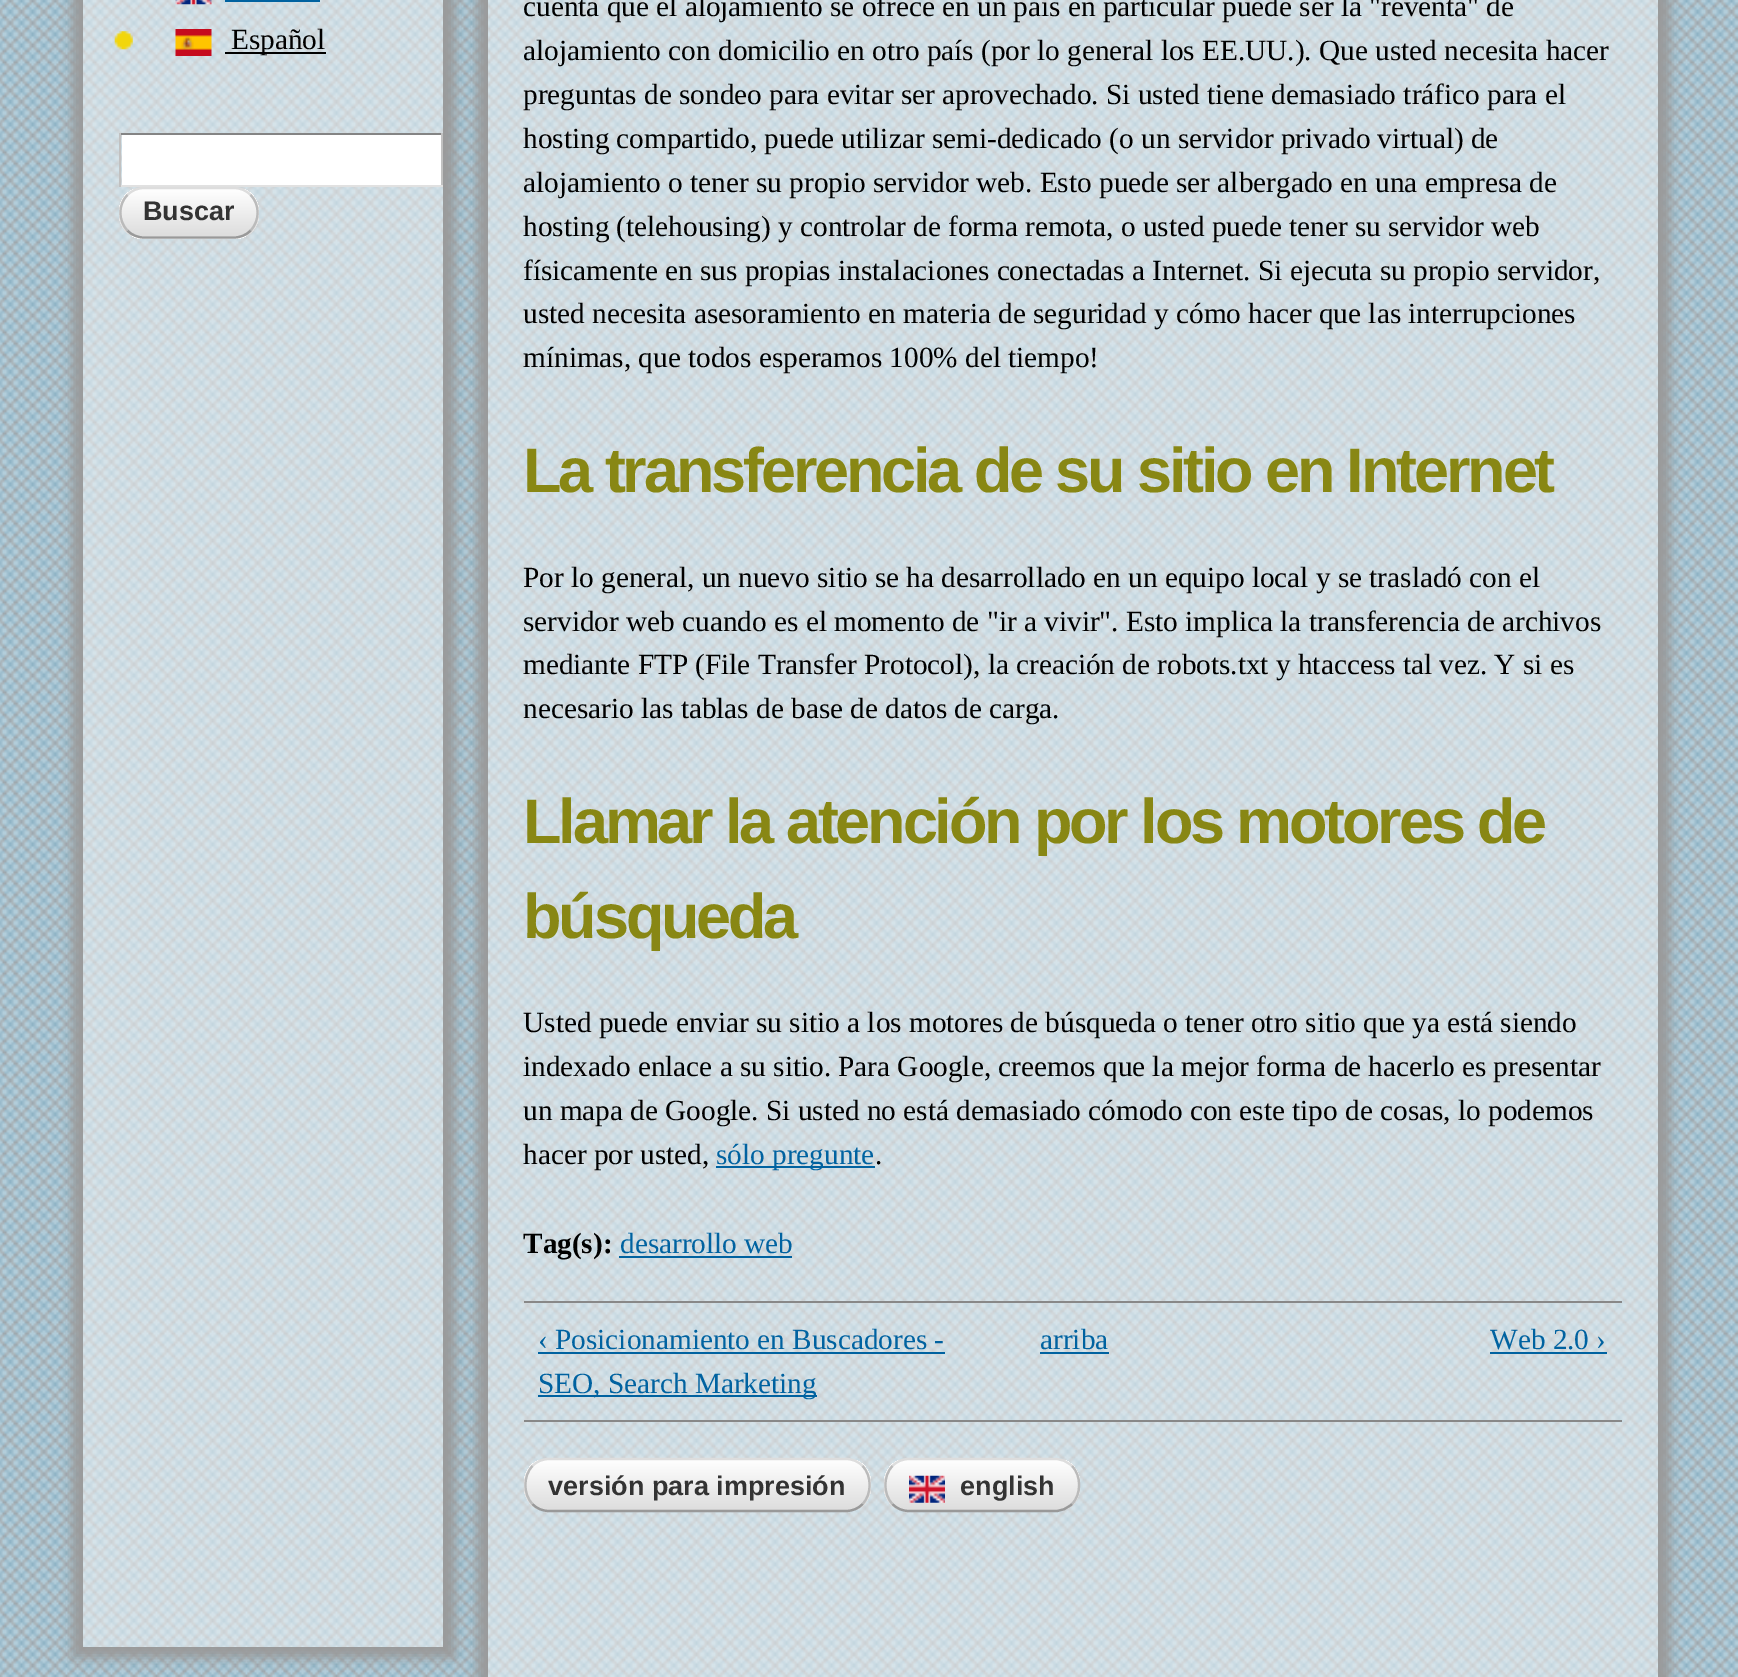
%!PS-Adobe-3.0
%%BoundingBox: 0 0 1738 1677
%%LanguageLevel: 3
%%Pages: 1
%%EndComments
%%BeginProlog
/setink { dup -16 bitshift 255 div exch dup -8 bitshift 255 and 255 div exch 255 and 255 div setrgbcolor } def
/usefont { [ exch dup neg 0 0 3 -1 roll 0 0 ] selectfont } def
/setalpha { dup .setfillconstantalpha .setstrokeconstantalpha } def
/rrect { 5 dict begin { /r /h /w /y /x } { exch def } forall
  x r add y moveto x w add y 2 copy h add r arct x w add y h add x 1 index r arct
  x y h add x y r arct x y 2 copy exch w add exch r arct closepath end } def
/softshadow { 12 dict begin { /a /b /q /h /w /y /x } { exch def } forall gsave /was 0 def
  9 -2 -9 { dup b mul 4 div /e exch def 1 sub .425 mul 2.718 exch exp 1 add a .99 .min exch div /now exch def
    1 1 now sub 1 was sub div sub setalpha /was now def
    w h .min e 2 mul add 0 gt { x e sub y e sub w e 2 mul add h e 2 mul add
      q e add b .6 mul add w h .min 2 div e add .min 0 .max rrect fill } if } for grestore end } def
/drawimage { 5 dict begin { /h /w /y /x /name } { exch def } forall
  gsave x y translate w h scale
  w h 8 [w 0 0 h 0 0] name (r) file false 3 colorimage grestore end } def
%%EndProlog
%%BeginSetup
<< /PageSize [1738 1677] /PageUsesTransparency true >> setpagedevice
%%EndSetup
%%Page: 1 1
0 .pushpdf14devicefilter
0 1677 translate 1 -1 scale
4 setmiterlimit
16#FFFFFF setink
0 0 1738 1677 rectfill
(img1.raw) 0 0 1738 1677 drawimage
gsave
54 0 moveto 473 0 lineto 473 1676 lineto 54 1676 lineto closepath 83 -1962 moveto 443 -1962 lineto 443 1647 lineto 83 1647 lineto closepath eoclip newpath
16#999999 setink
72 -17 383 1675 0 5.5 1 softshadow
grestore
0.5 setalpha
16#F8F8F8 setink
83 0 360 1647 rectfill
1 setalpha
(img2.raw) 175 0 37 5 drawimage
16#0062A0 setink
225 0 95 2 rectfill
(img3.raw) 114 31 19 19 drawimage
(img4.raw) 175 29 37 27 drawimage
16#000000 setink
225 52 101 2 rectfill
/LiberationSerif-Regular 29.25 usefont
231 49 moveto (Español) show
[
    [122 135 319 50 16#FFFFFF]
    [119 133 324 2 16#848484]
    [441 133 2 54 16#C1C1C1]
    [119 185 324 2 16#E1E1E1]
    [119 133 2 54 16#C1C1C1]
] { aload pop setink rectfill } forall
gsave
119 187 140 52 25 rrect clip newpath
gsave 119 189 moveto 259 189 lineto 259 236 lineto 119 236 lineto closepath clip newpath
<< /ShadingType 2 /ColorSpace /DeviceRGB /Coords [122 189 122 236] /Extend [true true] /Function << /FunctionType 2 /Domain [0 1] /C0 [1 1 1] /C1 [0.867 0.867 0.867] /N 1 >> >> shfill grestore
gsave 132 236 moveto 246 236 lineto 246 239 lineto 132 239 lineto closepath clip newpath
<< /ShadingType 2 /ColorSpace /DeviceRGB /Coords [122 236 122 284] /Extend [true true] /Function << /FunctionType 2 /Domain [0 1] /C0 [1 1 1] /C1 [0.867 0.867 0.867] /N 1 >> >> shfill grestore
grestore
16#DDDDDD setink
2.2 setlinewidth
127.5 195 moveto 131.5 190.5 137.5 188 144 188 curveto 234 188 lineto 240.5 188 246.5 190.5 250.5 195 curveto stroke
16#BBBBBB setink
250.5 195 moveto 260 204 260 221 250.5 230.5 curveto stroke
16#999999 setink
250.5 230.5 moveto 246.5 235 240.5 237.5 234 237.5 curveto 144 237.5 lineto 137.5 237.5 131.5 235 127.5 230.5 curveto stroke
16#BBBBBB setink
127.5 230.5 moveto 118 221 118 204 127.5 195 curveto stroke
/LiberationSans-Bold 27 usefont
16#333333 setink
143 220 moveto (Buscar) show
gsave
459 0 moveto 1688 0 lineto 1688 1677 lineto 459 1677 lineto closepath 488 -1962 moveto 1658 -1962 lineto 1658 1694 lineto 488 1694 lineto closepath eoclip newpath
16#999999 setink
477 -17 1193 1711 0 5.5 1 softshadow
grestore
0.5 setalpha
16#F8F8F8 setink
488 0 1170 1677 rectfill
/LiberationSerif-Regular 29.25 usefont
1 setalpha
16#000000 setink
[
    [(cuenta que el alojamiento se ofrece en un país en particular puede ser la "reventa" de) 523 16]
    [(alojamiento con domicilio en otro país \(por lo general los EE.UU.\). Que usted necesita hacer) 523 60]
    [(preguntas de sondeo para evitar ser aprovechado. Si usted tiene demasiado tráfico para el) 523 104]
    [(hosting compartido, puede utilizar semi-dedicado \(o un servidor privado virtual\) de) 523 148]
    [(alojamiento o tener su propio servidor web. Esto puede ser albergado en una empresa de) 523 192]
    [(hosting \(telehousing\) y controlar de forma remota, o usted puede tener su servidor web) 523 236]
    [(físicamente en sus propias instalaciones conectadas a Internet. Si ejecuta su propio servidor,) 523 280]
    [(usted necesita asesoramiento en materia de seguridad y cómo hacer que las interrupciones) 523 323]
    [(mínimas, que todos esperamos 100% del tiempo!) 523 367]
] { aload pop moveto show } forall
/LiberationSans-Bold 63 usefont
16#888714 setink
523 492 moveto -3.15 0 (La transferencia de su sitio en Internet) ashow
/LiberationSerif-Regular 29.25 usefont
16#000000 setink
[
    [(Por lo general, un nuevo sitio se ha desarrollado en un equipo local y se trasladó con el) 523 587]
    [(servidor web cuando es el momento de "ir a vivir". Esto implica la transferencia de archivos) 523 631]
    [(mediante FTP \(File Transfer Protocol\), la creación de robots.txt y htaccess tal vez. Y si es) 523 674]
    [(necesario las tablas de base de datos de carga.) 523 718]
] { aload pop moveto show } forall
/LiberationSans-Bold 63 usefont
16#888714 setink
523 843 moveto -3.15 0 (Llamar la atención por los motores de) ashow
523 938 moveto -3.15 0 (búsqueda) ashow
/LiberationSerif-Regular 29.25 usefont
16#000000 setink
[
    [(Usted puede enviar su sitio a los motores de búsqueda o tener otro sitio que ya está siendo) 523 1032]
    [(indexado enlace a su sitio. Para Google, creemos que la mejor forma de hacerlo es presentar) 523 1076]
    [(un mapa de Google. Si usted no está demasiado cómodo con este tipo de cosas, lo podemos) 523 1120]
    [(hacer por usted,) 523 1164]
] { aload pop moveto show } forall
16#0062A0 setink
716 1166 159 2 rectfill
716 1164 moveto (sólo pregunte) show
16#000000 setink
875 1164 moveto (.) show
/LiberationSerif-Bold 29.25 usefont
523 1253 moveto (Tag\(s\):) show
/LiberationSerif-Regular 29.25 usefont
16#0062A0 setink
620 1253 moveto (desarrollo web) show
[
    [619 1256 173 2 16#0062A0]
    [524 1301 1098 2 16#888888]
    [524 1420 1098 2 16#888888]
] { aload pop setink rectfill } forall
16#0062A0 setink
538 1349 moveto (‹ Posicionamiento en Buscadores -) show
538 1352 407 2 rectfill
538 1395 279 2 rectfill
538 1393 moveto (SEO, Search Marketing) show
1040 1349 moveto (arriba) show
1040 1352 69 2 rectfill
1490 1349 moveto (Web 2.0 ›) show
1490 1352 117 2 rectfill
gsave
524 1458 347 54 25 rrect clip newpath
gsave 524 1460 moveto 871 1460 lineto 871 1510 lineto 524 1510 lineto closepath clip newpath
<< /ShadingType 2 /ColorSpace /DeviceRGB /Coords [527 1460 527 1510] /Extend [true true] /Function << /FunctionType 2 /Domain [0 1] /C0 [1 1 1] /C1 [0.867 0.867 0.867] /N 1 >> >> shfill grestore
grestore
16#DDDDDD setink
532.5 1466 moveto 536.5 1461.5 542.5 1459 549 1459 curveto 846 1459 lineto 852.5 1459 858.5 1461.5 862.5 1466 curveto stroke
16#BBBBBB setink
862.5 1466 moveto 872 1475.5 872 1494.5 862.5 1504 curveto stroke
16#999999 setink
862.5 1504 moveto 858.5 1508.5 852.5 1511 846 1511 curveto 549 1511 lineto 542.5 1511 536.5 1508.5 532.5 1504 curveto stroke
16#BBBBBB setink
532.5 1504 moveto 523 1494.5 523 1475.5 532.5 1466 curveto stroke
/LiberationSans-Bold 27 usefont
16#333333 setink
548 1495 moveto (versión para impresión) show
gsave
884 1458 196 54 25 rrect clip newpath
gsave 884 1460 moveto 1080 1460 lineto 1080 1510 lineto 884 1510 lineto closepath clip newpath
<< /ShadingType 2 /ColorSpace /DeviceRGB /Coords [887 1460 887 1510] /Extend [true true] /Function << /FunctionType 2 /Domain [0 1] /C0 [1 1 1] /C1 [0.867 0.867 0.867] /N 1 >> >> shfill grestore
grestore
16#DDDDDD setink
892.5 1466 moveto 896.5 1461.5 902.5 1459 909 1459 curveto 1055 1459 lineto 1061.5 1459 1067.5 1461.5 1072 1466 curveto stroke
16#BBBBBB setink
1072 1466 moveto 1081.5 1475.5 1081.5 1494.5 1072 1504 curveto stroke
16#999999 setink
1072 1504 moveto 1067.5 1508.5 1061.5 1511 1055 1511 curveto 909 1511 lineto 902.5 1511 896.5 1508.5 892.5 1504 curveto stroke
16#BBBBBB setink
892.5 1504 moveto 883 1494.5 883 1475.5 892.5 1466 curveto stroke
(img5.raw) 909 1475 36 28 drawimage
16#333333 setink
960 1495 moveto (english) show
.poppdf14devicefilter showpage
%%EOF
